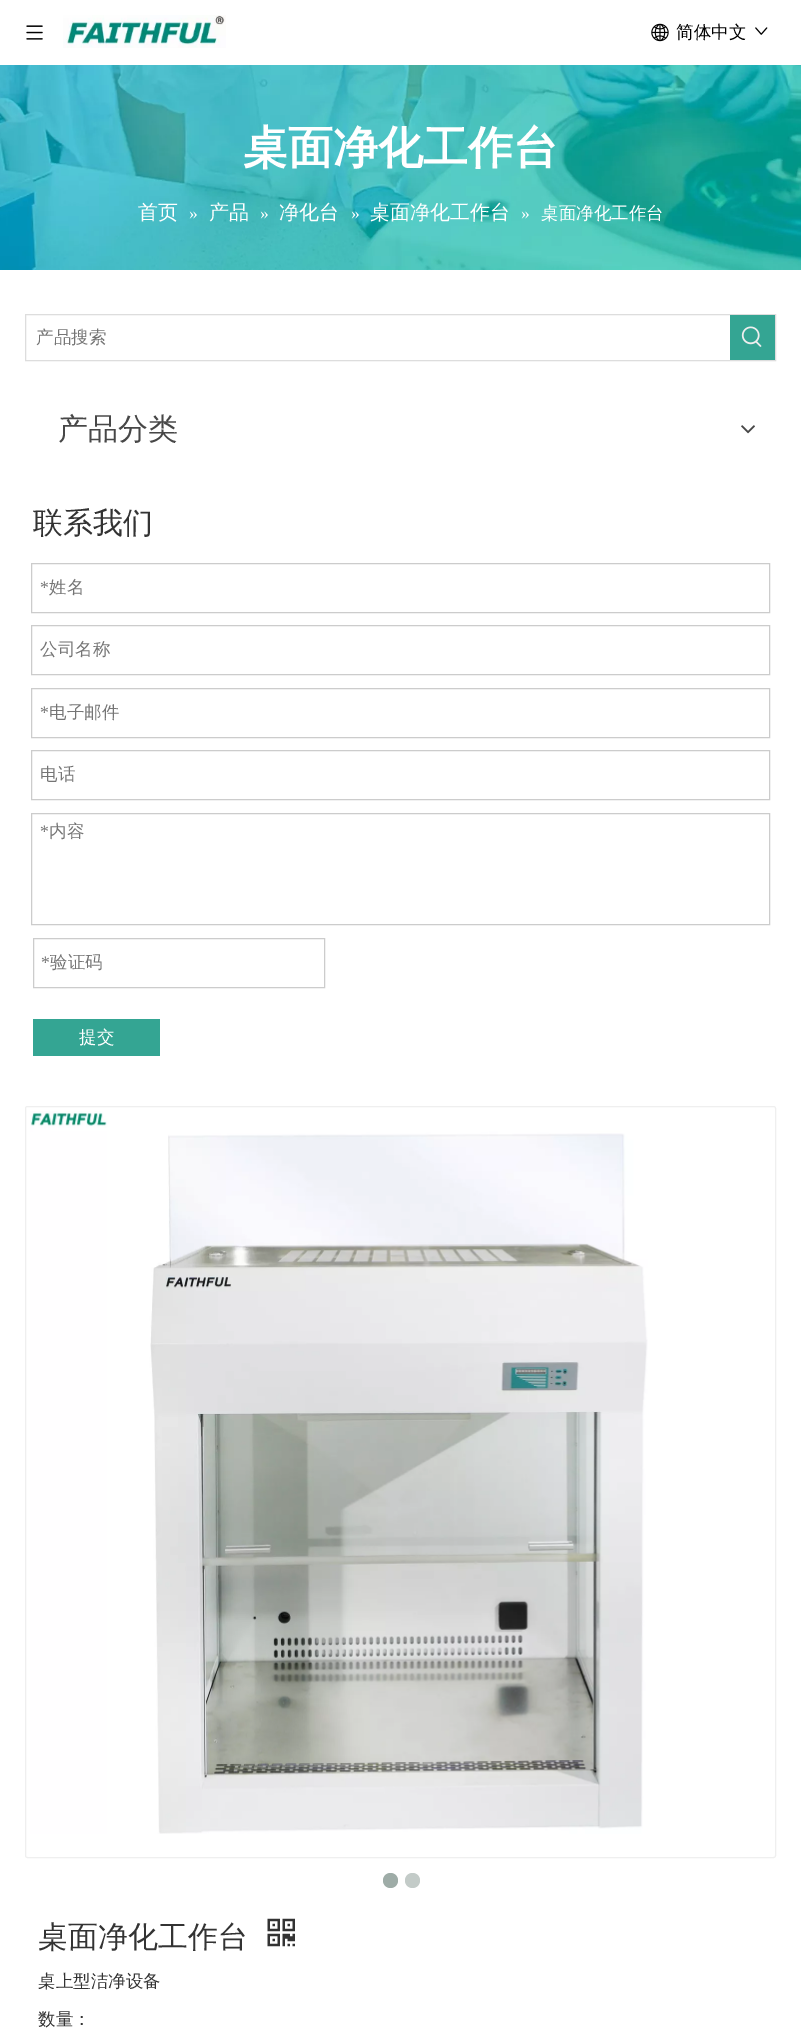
%!PS-Adobe-3.0
%%BoundingBox: 0 0 801 2029
%%LanguageLevel: 3
%%Pages: 1
%%EndComments
%%BeginProlog
/setink { dup -16 bitshift 255 div exch dup -8 bitshift 255 and 255 div exch 255 and 255 div setrgbcolor } def
/usefont { [ exch dup neg 0 0 3 -1 roll 0 0 ] selectfont } def
/disc { newpath 0 360 arc closepath } def
/rrect { 5 dict begin { /r /h /w /y /x } { exch def } forall
  x r add y moveto x w add y 2 copy h add r arct x w add y h add x 1 index r arct
  x y h add x y r arct x y 2 copy exch w add exch r arct closepath end } def
/drawimage { 5 dict begin { /h /w /y /x /name } { exch def } forall
  gsave x y translate w h scale
  w h 8 [w 0 0 h 0 0] name (r) file false 3 colorimage grestore end } def
%%EndProlog
%%BeginSetup
<< /PageSize [801 2029] >> setpagedevice
%%EndSetup
%%Page: 1 1
0 2029 translate 1 -1 scale
4 setmiterlimit
16#FFFFFF setink
0 0 801 2029 rectfill
(img1.raw) 26 25 17 15 drawimage
(img2.raw) 63 15 163 33 drawimage
(img3.raw) 651 23 18 19 drawimage
/WenQuanYiZenHei-Medium 17.5 usefont
16#000000 setink
676 38 moveto (简体中文) show
(img4.raw) 755 27 13 8 drawimage
(img5.raw) 0 65 801 205 drawimage
/WenQuanYiZenHei-Bold 45 usefont
16#FFFFFF setink
243 163 moveto (桌面净化工作台) show
/WenQuanYiZenHei-Medium 20 usefont
138 219 moveto (首页) show
/LiberationSerif-Regular 17.5 usefont
189 219 moveto (») show
/WenQuanYiZenHei-Medium 20 usefont
209 219 moveto (产品) show
/LiberationSerif-Regular 17.5 usefont
260 219 moveto (») show
/WenQuanYiZenHei-Medium 20 usefont
279 219 moveto (净化台) show
/LiberationSerif-Regular 17.5 usefont
351 219 moveto (») show
/WenQuanYiZenHei-Medium 20 usefont
370 219 moveto (桌面净化工作台) show
/LiberationSerif-Regular 17.5 usefont
521 219 moveto (») show
/WenQuanYiZenHei-Medium 17.5 usefont
541 219 moveto (桌面净化工作台) show
16#DDDDDD setink
25.5 314.5 750 46 rectstroke
16#757575 setink
36 343 moveto (产品搜索) show
16#34A593 setink
730 315 45 45 rectfill
(img6.raw) 741 326 21 21 drawimage
/WenQuanYiZenHei-Medium 30 usefont
16#474747 setink
58 439 moveto (产品分类) show
(img7.raw) 741 425 14 9 drawimage
16#333333 setink
33 533 moveto (联系我们) show
16#CCCCCC setink
31.5 563.5 738 49 rectstroke
/LiberationSerif-Regular 17.5 usefont
16#757575 setink
40 593 moveto (*) show
/WenQuanYiZenHei-Medium 17.5 usefont
49 593 moveto (姓名) show
16#CCCCCC setink
31.5 625.5 738 49 rectstroke
16#757575 setink
40 655 moveto (公司名称) show
16#CCCCCC setink
31.5 688.5 738 49 rectstroke
/LiberationSerif-Regular 17.5 usefont
16#757575 setink
40 718 moveto (*) show
/WenQuanYiZenHei-Medium 17.5 usefont
49 718 moveto (电子邮件) show
16#CCCCCC setink
31.5 750.5 738 49 rectstroke
16#757575 setink
40 780 moveto (电话) show
16#CCCCCC setink
31.5 813.5 738 111 rectstroke
/LiberationSerif-Regular 17.5 usefont
16#757575 setink
40 837 moveto (*) show
/WenQuanYiZenHei-Medium 17.5 usefont
49 837 moveto (内容) show
16#CCCCCC setink
33.5 938.5 291 49 rectstroke
/LiberationSerif-Regular 17.5 usefont
16#757575 setink
41 968 moveto (*) show
/WenQuanYiZenHei-Medium 17.5 usefont
50 968 moveto (验证码) show
16#34A593 setink
33 1019 127 37 rectfill
16#FFFFFF setink
79 1043 moveto (提交) show
16#EFEFEF setink
25.5 1106.5 750 751 2 rrect stroke
(img8.raw) 30 1111 618 723 drawimage
16#9EACA7 setink
390.5 1880.5 7.5 disc fill
16#C3CBC8 setink
412.5 1880.5 7.5 disc fill
/WenQuanYiZenHei-Medium 30 usefont
16#333333 setink
38 1947 moveto (桌面净化工作台) show
(img9.raw) 267 1918 28 29 drawimage
/WenQuanYiZenHei-Medium 17.5 usefont
38 1987 moveto (桌上型洁净设备) show
38 2025 moveto (数量：) show
showpage
%%EOF
